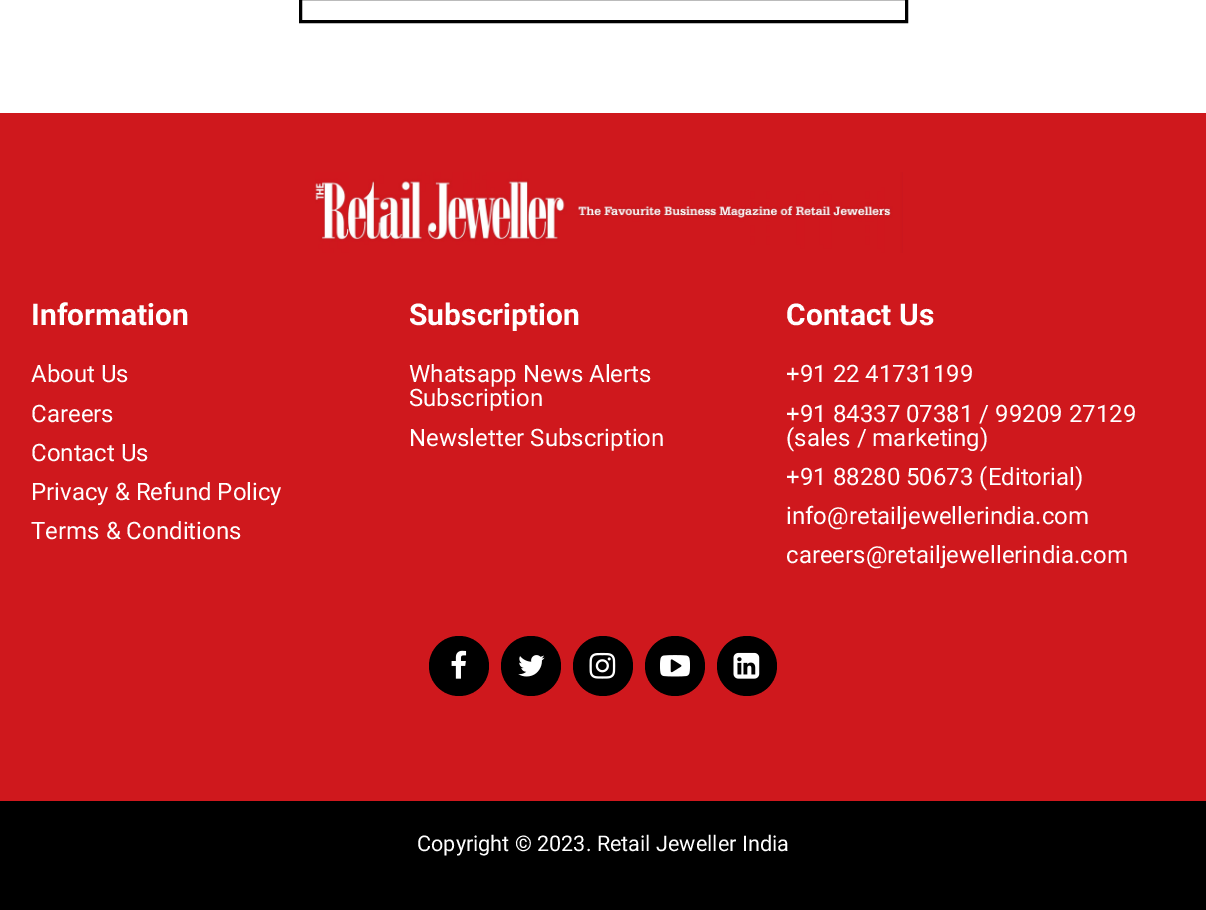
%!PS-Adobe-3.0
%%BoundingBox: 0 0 1206 910
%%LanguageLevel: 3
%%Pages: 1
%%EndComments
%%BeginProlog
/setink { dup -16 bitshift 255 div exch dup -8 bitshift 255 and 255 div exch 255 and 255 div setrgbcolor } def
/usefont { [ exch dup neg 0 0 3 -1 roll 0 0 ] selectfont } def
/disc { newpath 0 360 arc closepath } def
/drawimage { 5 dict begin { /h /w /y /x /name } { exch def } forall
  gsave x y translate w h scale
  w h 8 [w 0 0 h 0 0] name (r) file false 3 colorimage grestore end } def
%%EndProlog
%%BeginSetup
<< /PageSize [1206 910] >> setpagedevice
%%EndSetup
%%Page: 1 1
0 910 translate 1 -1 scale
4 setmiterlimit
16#FFFFFF setink
0 0 1206 910 rectfill
16#000000 setink
3 setlinewidth
300.5 -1.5 606 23 rectstroke
16#CF181D setink
0 113 1206 688 rectfill
(img1.raw) 315 172 588 81 drawimage
/Roboto-Bold 30 usefont
16#FFFFFF setink
31 325 moveto (Information) show
/Roboto-Regular 24 usefont
[
    [(About Us) 31 382]
    [(Careers) 31 422]
    [(Contact Us) 31 461]
    [(Privacy & Refund Policy) 31 500]
    [(Terms & Conditions) 31 539]
] { aload pop moveto show } forall
/Roboto-Bold 30 usefont
409 325 moveto (Subscription) show
/Roboto-Regular 24 usefont
[
    [(Whatsapp News Alerts) 409 382]
    [(Subscription) 409 406]
    [(Newsletter Subscription) 409 446]
] { aload pop moveto show } forall
/Roboto-Bold 30 usefont
786 325 moveto (Contact Us) show
/Roboto-Regular 24 usefont
[
    [(+91 22 41731199) 786 382]
    [(+91 84337 07381 / 99209 27129) 786 422]
    [(\(sales / marketing\)) 786 446]
    [(+91 88280 50673 \(Editorial\)) 786 485]
    [(info@retailjewellerindia.com) 786 524]
    [(careers@retailjewellerindia.com) 786 563]
] { aload pop moveto show } forall
16#000000 setink
459 666 30 disc fill
(img2.raw) 451 650 16 29 drawimage
531 666 30 disc fill
(img3.raw) 518 655 27 22 drawimage
603 666 30 disc fill
(img4.raw) 589 652 27 27 drawimage
675 666 30 disc fill
(img5.raw) 660 655 30 22 drawimage
747 666 30 disc fill
(img6.raw) 733 652 27 27 drawimage
0 801 1206 109 rectfill
/Roboto-Regular 21.6 usefont
16#FFFFFF setink
417 851 moveto (Copyright © 2023. Retail Jeweller India) show
showpage
%%EOF
